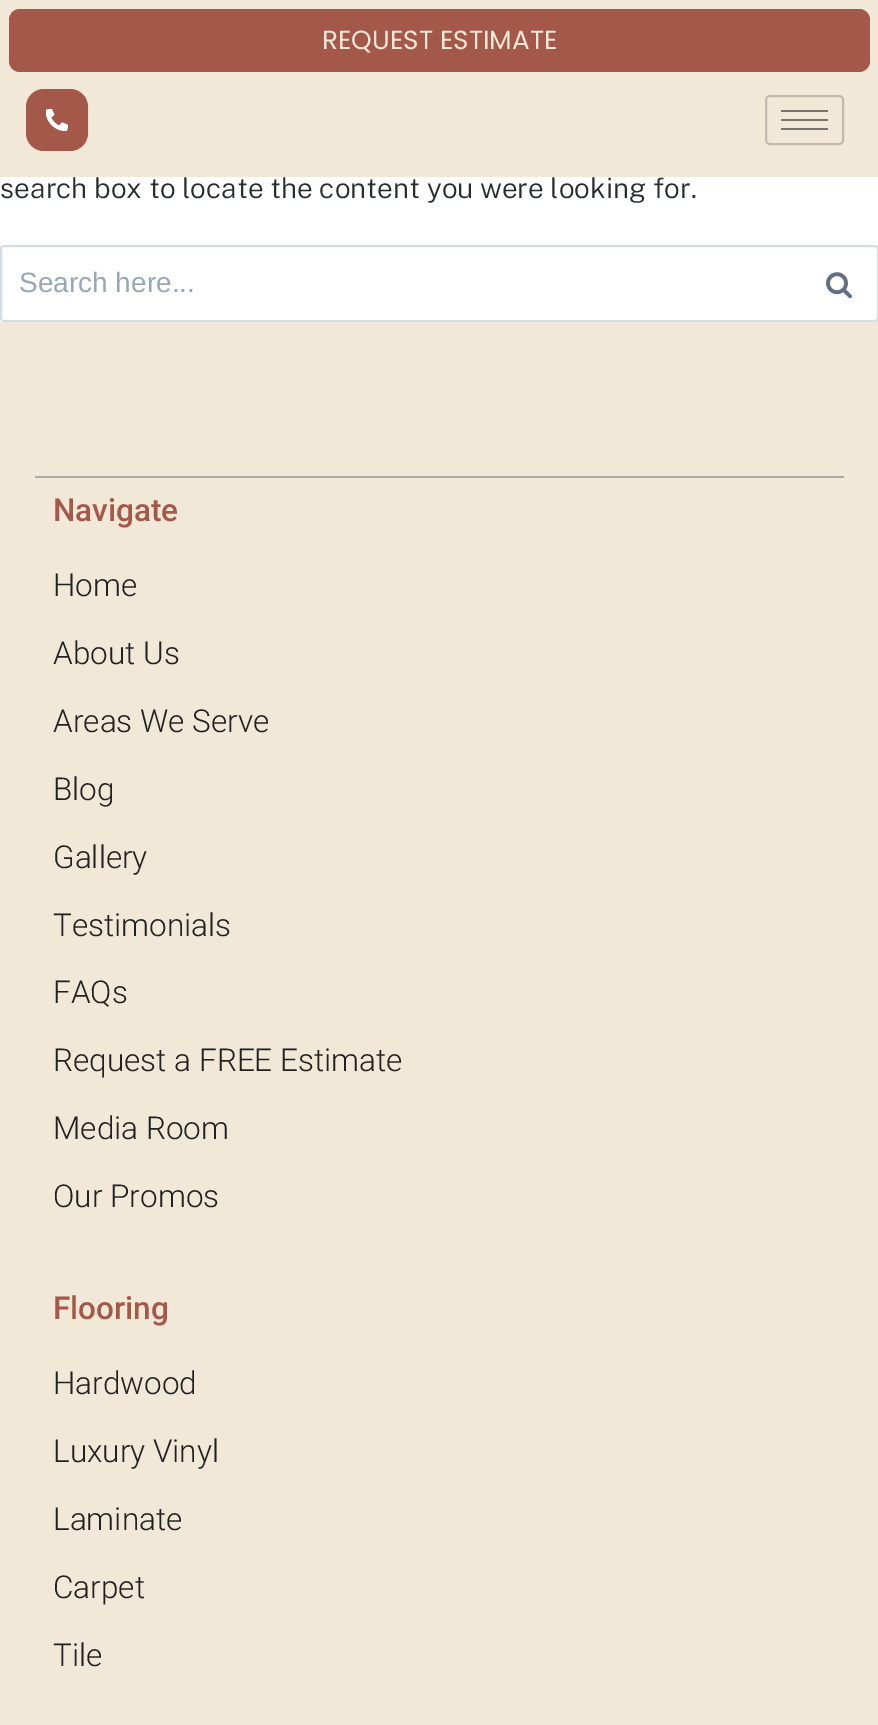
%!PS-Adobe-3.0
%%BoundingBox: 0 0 878 1725
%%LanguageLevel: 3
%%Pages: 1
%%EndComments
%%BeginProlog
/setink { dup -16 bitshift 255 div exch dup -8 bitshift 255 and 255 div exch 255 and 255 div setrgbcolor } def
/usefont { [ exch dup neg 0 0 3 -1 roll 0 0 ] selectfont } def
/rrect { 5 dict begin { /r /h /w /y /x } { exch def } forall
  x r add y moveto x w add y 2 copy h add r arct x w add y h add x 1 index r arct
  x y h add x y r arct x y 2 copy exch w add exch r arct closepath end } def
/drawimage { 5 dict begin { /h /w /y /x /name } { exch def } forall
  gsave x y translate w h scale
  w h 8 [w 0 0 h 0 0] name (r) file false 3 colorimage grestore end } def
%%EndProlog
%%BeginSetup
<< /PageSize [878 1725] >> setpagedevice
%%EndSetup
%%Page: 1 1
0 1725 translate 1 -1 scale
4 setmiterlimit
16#FFFFFF setink
0 0 878 1725 rectfill
16#F2E8D8 setink
0 0 878 177 rectfill
16#A45849 setink
9 9 861 63 11 rrect fill
/Poppins-Regular 26.25 usefont
16#F2E8D8 setink
322 49 moveto (REQUEST ESTIMATE) show
16#A45849 setink
26 89 62 62 18 rrect fill
(img1.raw) 46 109 22 22 drawimage
16#C2BAAD setink
2 setlinewidth
766 96 77 48 4 rrect stroke
[
    [781 110 47 2 16#79746C]
    [781 119 47 2 16#79746C]
    [781 128 47 2 16#79746C]
] { aload pop setink rectfill } forall
/PublicSans-Light 28 usefont
16#272C30 setink
0 198 moveto (search box to locate the content you were looking for.) show
16#D4DDE5 setink
1 246 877 75 3 rrect stroke
/LiberationSans-Regular 28 usefont
16#97A7B5 setink
19 292 moveto (Search here...) show
(img2.raw) 826 272 26 27 drawimage
16#F2E8D8 setink
0 322 878 1403 rectfill
16#AAAAAA setink
35 476 809 2 rectfill
/Roboto-Medium 31.5 usefont
16#A45849 setink
53 521 moveto (Navigate) show
/Roboto-Light 31.5 usefont
16#212121 setink
[
    [(Home) 53 596]
    [(About Us) 53 664]
    [(Areas We Serve) 53 732]
    [(Blog) 53 800]
    [(Gallery) 53 868]
    [(Testimonials) 53 936]
    [(FAQs) 53 1003]
    [(Request a FREE Estimate) 53 1071]
    [(Media Room) 53 1139]
    [(Our Promos) 53 1207]
] { aload pop moveto show } forall
/Roboto-Medium 31.5 usefont
16#A45849 setink
53 1319 moveto (Flooring) show
/Roboto-Light 31.5 usefont
16#212121 setink
[
    [(Hardwood) 53 1394]
    [(Luxury Vinyl) 53 1462]
    [(Laminate) 53 1530]
    [(Carpet) 53 1598]
    [(Tile) 53 1666]
] { aload pop moveto show } forall
showpage
%%EOF
